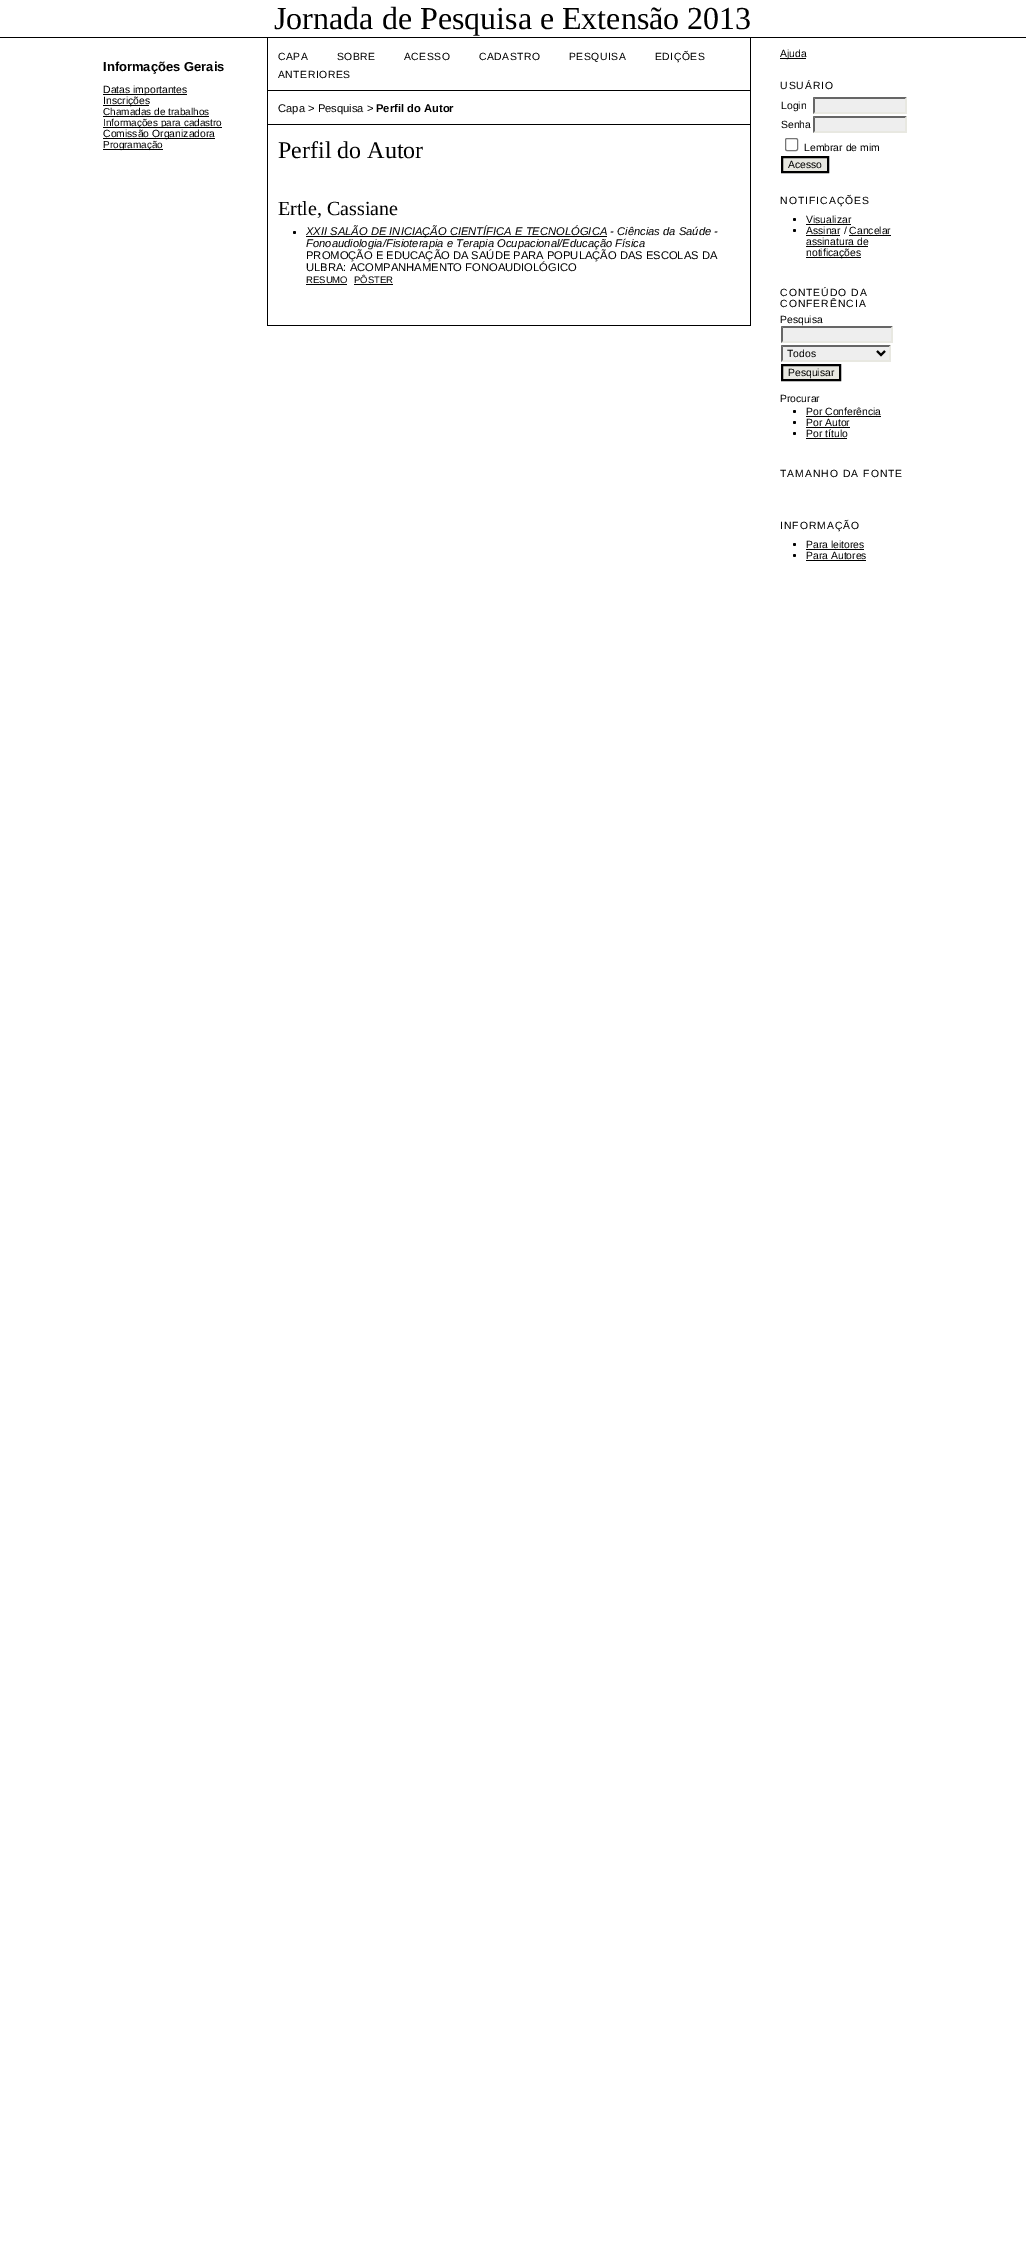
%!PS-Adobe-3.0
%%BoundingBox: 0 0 1026 2262
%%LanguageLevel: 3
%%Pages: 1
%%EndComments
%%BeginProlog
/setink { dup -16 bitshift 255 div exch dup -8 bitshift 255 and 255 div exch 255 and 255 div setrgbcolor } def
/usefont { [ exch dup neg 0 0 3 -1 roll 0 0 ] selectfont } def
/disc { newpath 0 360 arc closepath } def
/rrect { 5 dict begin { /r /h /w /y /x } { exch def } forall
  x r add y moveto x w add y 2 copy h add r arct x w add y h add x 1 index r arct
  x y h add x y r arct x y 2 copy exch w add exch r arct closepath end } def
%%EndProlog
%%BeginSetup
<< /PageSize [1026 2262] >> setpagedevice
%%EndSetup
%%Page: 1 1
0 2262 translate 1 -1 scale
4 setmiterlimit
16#FFFFFF setink
0 0 1026 2262 rectfill
16#000000 setink
0 37 1026 1 rectfill
/LiberationSerif-Regular 32 usefont
274 29 moveto (Jornada de Pesquisa e Extensão 2013) show
/LiberationSans-Bold 13 usefont
103 71 moveto (Informações Gerais) show
103 94 84 1 rectfill
/LiberationSans-Regular 10.4 usefont
103 93 moveto (Datas importantes) show
103 105 46 1 rectfill
103 104 moveto (Inscrições) show
/LiberationSans-Regular 10 usefont
103 115 moveto (Chamadas de trabalhos) show
103 116 106 1 rectfill
103 127 119 1 rectfill
103 126 moveto (Informações para cadastro) show
103 138 112 1 rectfill
/LiberationSans-Regular 10.4 usefont
103 137 moveto (Comissão Organizadora) show
103 149 60 1 rectfill
/LiberationSans-Regular 10 usefont
103 148 moveto (Programação) show
780 58 26 1 rectfill
/LiberationSans-Regular 10.4 usefont
780 57 moveto (Ajuda) show
780 89 moveto 1 0 (USUÁRIO) ashow
781 109 moveto (Login) show
16#EEEEEE setink
813 97 94 17 rectfill
16#666666 setink
813 97 moveto 907 97 lineto 905 99 lineto 815 99 lineto closepath fill
16#E8E8E1 setink
907 97 moveto 907 114 lineto 905 112 lineto 905 99 lineto closepath fill
907 114 moveto 813 114 lineto 815 112 lineto 905 112 lineto closepath fill
16#666666 setink
813 114 moveto 813 97 lineto 815 99 lineto 815 112 lineto closepath fill
16#000000 setink
781 128 moveto (Senha) show
16#EEEEEE setink
813 116 94 17 rectfill
16#666666 setink
813 116 moveto 907 116 lineto 905 118 lineto 815 118 lineto closepath fill
16#E8E8E1 setink
907 116 moveto 907 133 lineto 905 131 lineto 905 118 lineto closepath fill
907 133 moveto 813 133 lineto 815 131 lineto 905 131 lineto closepath fill
16#666666 setink
813 133 moveto 813 116 lineto 815 118 lineto 815 131 lineto closepath fill
16#767676 setink
785.5 138.5 12 12 1.5 rrect stroke
16#000000 setink
804 151 moveto (Lembrar de mim) show
16#E8E8E1 setink
782 157 moveto 828 157 lineto 828 172 lineto 782 172 lineto closepath gsave fill grestore
16#000000 setink
2 setlinewidth
stroke
788 168 moveto (Acesso) show
780 204 moveto 1 0 (NOTIFICAÇÕES) ashow
794.5 219.5 1.5 disc fill
806 223 moveto (Visualizar) show
806 224 45 1 rectfill
794.5 230.5 1.5 disc fill
806 234 moveto (Assinar / Cancelar) show
806 235 34 1 rectfill
806 245 moveto (assinatura de) show
[
    [849 235 42 1 16#000000]
    [806 246 62 1 16#000000]
    [806 257 55 1 16#000000]
] { aload pop setink rectfill } forall
806 256 moveto (notificações) show
780 296 moveto 1 0 (CONTEÚDO DA) ashow
780 307 moveto 1 0 (CONFERÊNCIA) ashow
780 323 moveto (Pesquisa) show
16#EEEEEE setink
781 326 112 17 rectfill
16#666666 setink
781 326 moveto 893 326 lineto 891 328 lineto 783 328 lineto closepath fill
16#E8E8E1 setink
893 326 moveto 893 343 lineto 891 341 lineto 891 328 lineto closepath fill
893 343 moveto 781 343 lineto 783 341 lineto 891 341 lineto closepath fill
16#666666 setink
781 343 moveto 781 326 lineto 783 328 lineto 783 341 lineto closepath fill
16#EEEEEE setink
781 345 110 17 rectfill
16#666666 setink
781 345 moveto 891 345 lineto 889 347 lineto 783 347 lineto closepath fill
16#E8E8E1 setink
891 345 moveto 891 362 lineto 889 360 lineto 889 347 lineto closepath fill
891 362 moveto 781 362 lineto 783 360 lineto 889 360 lineto closepath fill
16#666666 setink
781 362 moveto 781 345 lineto 783 347 lineto 783 360 lineto closepath fill
16#000000 setink
877 351 moveto 881 355 lineto 885 351 lineto stroke
787 357 moveto (Todos) show
16#E8E8E1 setink
782 365 moveto 840 365 lineto 840 380 lineto 782 380 lineto closepath gsave fill grestore
16#000000 setink
stroke
788 376 moveto (Pesquisar) show
780 402 moveto (Procurar) show
794.5 411.5 1.5 disc fill
806 415 moveto (Por Conferência) show
806 416 75 1 rectfill
794.5 422.5 1.5 disc fill
806 426 moveto (Por Autor) show
806 427 44 1 rectfill
794.5 433.5 1.5 disc fill
806 437 moveto (Por título) show
806 438 41 1 rectfill
780 477 moveto 1 0 (TAMANHO DA FONTE) ashow
780 529 moveto 1 0 (INFORMAÇÃO) ashow
794.5 544.5 1.5 disc fill
806 548 moveto (Para leitores) show
806 549 58 1 rectfill
794.5 555.5 1.5 disc fill
806 559 moveto (Para Autores) show
[
    [806 560 60 1 16#000000]
    [750 38 1 288 16#000000]
    [267 325 484 1 16#000000]
    [267 38 1 288 16#000000]
    [268 90 482 1 16#000000]
] { aload pop setink rectfill } forall
278 60 moveto 0.5 0 (CAPA) ashow
337 60 moveto 0.5 0 (SOBRE) ashow
404 60 moveto 0.5 0 (ACESSO) ashow
479 60 moveto 0.5 0 (CADASTRO) ashow
569 60 moveto 0.5 0 (PESQUISA) ashow
655 60 moveto 0.5 0 (EDIÇÕES) ashow
278 78 moveto 0.5 0 (ANTERIORES) ashow
268 124 482 1 rectfill
/LiberationSans-Regular 11.2 usefont
278 112 moveto (Capa > Pesquisa >) show
/LiberationSans-Bold 11.2 usefont
376 112 moveto (Perfil do Autor) show
/LiberationSerif-Regular 24 usefont
278 158 moveto (Perfil do Autor) show
/LiberationSerif-Regular 20 usefont
278 215 moveto (Ertle, Cassiane) show
294.5 232.5 1.5 disc fill
306 236 301 1 rectfill
/LiberationSans-Italic 11.2 usefont
306 235 moveto (XXII SALÃO DE INICIAÇÃO CIENTÍFICA E TECNOLÓGICA - Ciências da Saúde -) show
306 247 moveto (Fonoaudiologia/Fisioterapia e Terapia Ocupacional/Educação Física) show
/LiberationSans-Regular 11.2 usefont
306 259 moveto (PROMOÇÃO E EDUCAÇÃO DA SAÚDE PARA POPULAÇÃO DAS ESCOLAS DA) show
306 271 moveto (ULBRA: ACOMPANHAMENTO FONOAUDIOLÓGICO) show
/LiberationSans-Regular 9.5 usefont
306 283 moveto (RESUMO) show
306 284 41 1 rectfill
354 283 moveto (PÔSTER) show
354 284 39 1 rectfill
showpage
%%EOF
